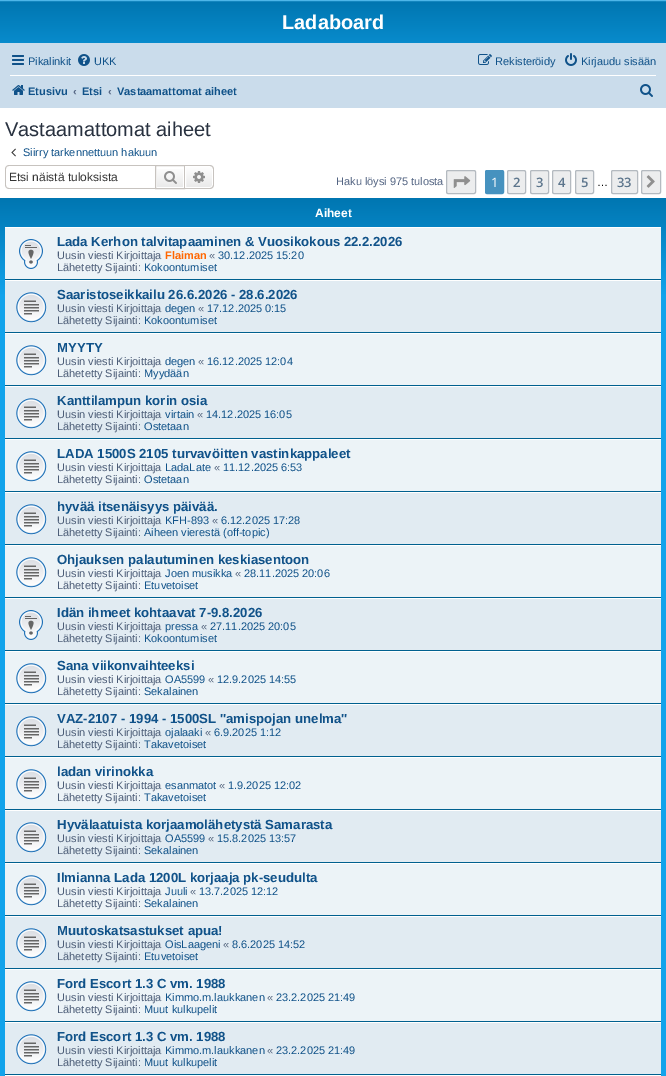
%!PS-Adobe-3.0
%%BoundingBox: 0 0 666 1076
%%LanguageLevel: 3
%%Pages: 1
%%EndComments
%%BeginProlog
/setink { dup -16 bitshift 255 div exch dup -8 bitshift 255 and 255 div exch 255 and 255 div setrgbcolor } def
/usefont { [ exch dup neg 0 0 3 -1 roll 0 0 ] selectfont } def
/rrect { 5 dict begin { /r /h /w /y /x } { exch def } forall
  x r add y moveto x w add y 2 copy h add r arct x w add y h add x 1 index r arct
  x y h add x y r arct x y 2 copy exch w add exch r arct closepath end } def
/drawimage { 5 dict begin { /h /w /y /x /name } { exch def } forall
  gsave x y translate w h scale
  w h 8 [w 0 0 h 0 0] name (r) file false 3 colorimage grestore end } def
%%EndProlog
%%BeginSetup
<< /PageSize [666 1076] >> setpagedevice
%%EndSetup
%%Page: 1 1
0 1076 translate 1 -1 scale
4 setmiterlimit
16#FFFFFF setink
0 0 666 1076 rectfill
gsave 0 0 moveto 666 0 lineto 666 43 lineto 0 43 lineto closepath clip newpath
<< /ShadingType 2 /ColorSpace /DeviceRGB /Coords [333 0 333 92] /Extend [true true] /Function << /FunctionType 3 /Domain [0 1] /Functions [<< /FunctionType 2 /Domain [0 1] /C0 [0.416 0.808 1] /C1 [0 0.463 0.694] /N 1 >> << /FunctionType 2 /Domain [0 1] /C0 [0 0.463 0.694] /C1 [0.071 0.639 0.922] /N 1 >>] /Bounds [0.02] /Encode [0 1 0 1] >> >> shfill grestore
/LiberationSans-Bold 20 usefont
282 29 moveto (Ladaboard) show
16#CADCEB setink
0 43 666 65 rectfill
(img1.raw) 12 55 12 10 drawimage
/LiberationSans-Regular 11 usefont
16#105289 setink
28 65 moveto (Pikalinkit) show
(img2.raw) 78 54 12 12 drawimage
94 65 moveto (UKK) show
(img3.raw) 478 54 14 11 drawimage
495 65 moveto (Rekisteröidy) show
(img4.raw) 565 53 12 13 drawimage
581 65 moveto (Kirjaudu sisään) show
16#FFFFFF setink
10 75 646 1 rectfill
(img5.raw) 12 85 13 10 drawimage
/LiberationSans-Bold 11 usefont
16#105289 setink
28 95 moveto (Etusivu) show
16#536482 setink
73 95 moveto (‹) show
16#105289 setink
82 95 moveto (Etsi) show
16#536482 setink
108 95 moveto (‹) show
16#105289 setink
117 95 moveto (Vastaamattomat aiheet) show
(img6.raw) 640 84 13 13 drawimage
/LiberationSans-Regular 20 usefont
16#28313F setink
5 136 moveto (Vastaamattomat aiheet) show
(img7.raw) 11 148 5 9 drawimage
/LiberationSans-Regular 11 usefont
16#105289 setink
23 156 moveto (Siirry tarkennettuun hakuun) show
16#C7C3BF setink
9 165 moveto 155 165 lineto 155 189 lineto 9 189 lineto 7 189 5 187 5 185 curveto 5 169 lineto 5 167 7 165 9 165 curveto closepath 9 166 moveto 155 166 lineto 155 188 lineto 9 188 lineto 7 188 6 187 6 185 curveto 6 169 lineto 6 167 7 166 9 166 curveto closepath eofill
/LiberationSans-Regular 12 usefont
16#333333 setink
9 181 moveto (Etsi näistä tuloksista) show
gsave 157 169 moveto 183 169 lineto 183 187 lineto 157 187 lineto closepath clip newpath
<< /ShadingType 2 /ColorSpace /DeviceRGB /Coords [170 166 170 188] /Extend [true true] /Function << /FunctionType 2 /Domain [0 1] /C0 [1 1 1] /C1 [0.914 0.914 0.914] /N 1 >> >> shfill grestore
16#C7C3BF setink
155.5 165.5 29 23 rectstroke
(img8.raw) 164 171 13 13 drawimage
gsave 185.5 166.5 moveto 210 166.5 lineto 211.5 166.5 212.5 167.5 212.5 169 curveto 212.5 185 lineto 212.5 186.5 211.5 187.5 210 187.5 curveto 185.5 187.5 lineto closepath clip newpath
<< /ShadingType 2 /ColorSpace /DeviceRGB /Coords [199 166 199 188] /Extend [true true] /Function << /FunctionType 2 /Domain [0 1] /C0 [1 1 1] /C1 [0.914 0.914 0.914] /N 1 >> >> shfill grestore
16#FFFFFF setink
185.5 166.5 moveto 210 166.5 lineto 211.5 166.5 212.5 167.5 212.5 169 curveto 212.5 185 lineto 212.5 186.5 211.5 187.5 210 187.5 curveto 185.5 187.5 lineto closepath stroke
16#C7C3BF setink
185 165 moveto 210 165 lineto 212 165 214 167 214 169 curveto 214 185 lineto 214 187 212 189 210 189 curveto 185 189 lineto closepath 185 166 moveto 210 166 lineto 211.5 166 213 167.5 213 169 curveto 213 185 lineto 213 186.5 211.5 188 210 188 curveto 185 188 lineto closepath eofill
(img9.raw) 193 171 12 12 drawimage
/LiberationSans-Regular 11 usefont
16#536482 setink
336 185 moveto (Haku löysi 975 tulosta) show
16#ECEDEE setink
446.5 170.5 29 23 1.5 rrect gsave fill grestore
16#B4BAC0 setink
stroke
(img10.raw) 453 176 18 12 drawimage
16#4692BF setink
485.5 170.5 18 23 1.5 rrect gsave fill grestore
stroke
/OpenSans-Regular 13 usefont
16#FFFFFF setink
491 187 moveto (1) show
16#ECEDEE setink
507.5 170.5 18 23 1.5 rrect gsave fill grestore
16#B4BAC0 setink
stroke
/OpenSans-SemiBold 13 usefont
16#5C758C setink
513 187 moveto (2) show
16#ECEDEE setink
530.5 170.5 18 23 1.5 rrect gsave fill grestore
16#B4BAC0 setink
stroke
16#5C758C setink
536 187 moveto (3) show
16#ECEDEE setink
552.5 170.5 18 23 1.5 rrect gsave fill grestore
16#B4BAC0 setink
stroke
16#5C758C setink
558 187 moveto (4) show
16#ECEDEE setink
575.5 170.5 18 23 1.5 rrect gsave fill grestore
16#B4BAC0 setink
stroke
16#5C758C setink
581 187 moveto (5) show
/LiberationSans-Regular 11 usefont
16#000000 setink
597 186 moveto (…) show
16#ECEDEE setink
611.5 170.5 26 23 1.5 rrect gsave fill grestore
16#B4BAC0 setink
stroke
/OpenSans-SemiBold 13 usefont
16#5C758C setink
617 187 moveto (33) show
16#ECEDEE setink
641.5 170.5 19 23 1.5 rrect gsave fill grestore
16#B4BAC0 setink
stroke
(img11.raw) 646 175 9 13 drawimage
gsave 0 198 moveto 666 198 lineto 666 1076 lineto 0 1076 lineto closepath clip newpath
<< /ShadingType 2 /ColorSpace /DeviceRGB /Coords [333 198 333 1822] /Extend [true true] /Function << /FunctionType 3 /Domain [0 1] /Functions [<< /FunctionType 2 /Domain [0 1] /C0 [0 0.463 0.694] /C1 [0.071 0.639 0.922] /N 1 >> << /FunctionType 2 /Domain [0 1] /C0 [0.071 0.639 0.922] /C1 [0.071 0.639 0.922] /N 1 >>] /Bounds [0.06] /Encode [0 1 0 1] >> >> shfill grestore
/LiberationSans-Bold 12 usefont
16#FFFFFF setink
315 217 moveto (Aiheet) show
[
    [5 228 656 51 16#ECF3F7]
    [5 227 656 1 16#FFFFFF]
    [5 279 656 1 16#00608F]
] { aload pop setink rectfill } forall
(img12.raw) 19 239 24 30 drawimage
/LiberationSans-Bold 13.2 usefont
16#105289 setink
57 246 moveto (Lada Kerhon talvitapaaminen & Vuosikokous 22.2.2026) show
/LiberationSans-Regular 11 usefont
16#4C5D77 setink
57 259 moveto (Uusin viesti Kirjoittaja) show
/LiberationSans-Bold 11 usefont
16#FF6600 setink
165 259 moveto (Flaiman) show
/LiberationSans-Regular 11 usefont
16#4C5D77 setink
209 259 moveto («) show
16#105289 setink
218 259 moveto (30.12.2025 15:20) show
16#4C5D77 setink
57 271 moveto (Lähetetty Sijainti:) show
16#105289 setink
144 271 moveto (Kokoontumiset) show
[
    [5 281 656 51 16#E1EBF2]
    [5 280 656 1 16#FFFFFF]
    [5 332 656 1 16#00608F]
] { aload pop setink rectfill } forall
(img13.raw) 16 292 31 31 drawimage
/LiberationSans-Bold 13.2 usefont
16#105289 setink
57 299 moveto (Saaristoseikkailu 26.6.2026 - 28.6.2026) show
/LiberationSans-Regular 11 usefont
16#4C5D77 setink
57 312 moveto (Uusin viesti Kirjoittaja) show
16#105289 setink
165 312 moveto (degen) show
16#4C5D77 setink
198 312 moveto («) show
16#105289 setink
207 312 moveto (17.12.2025 0:15) show
16#4C5D77 setink
57 324 moveto (Lähetetty Sijainti:) show
16#105289 setink
144 324 moveto (Kokoontumiset) show
[
    [5 334 656 51 16#ECF3F7]
    [5 333 656 1 16#FFFFFF]
    [5 385 656 1 16#00608F]
] { aload pop setink rectfill } forall
(img14.raw) 16 345 31 31 drawimage
/LiberationSans-Bold 13.2 usefont
16#105289 setink
57 352 moveto (MYYTY) show
/LiberationSans-Regular 11 usefont
16#4C5D77 setink
57 365 moveto (Uusin viesti Kirjoittaja) show
16#105289 setink
165 365 moveto (degen) show
16#4C5D77 setink
198 365 moveto («) show
16#105289 setink
207 365 moveto (16.12.2025 12:04) show
16#4C5D77 setink
57 377 moveto (Lähetetty Sijainti:) show
16#105289 setink
144 377 moveto (Myydään) show
[
    [5 387 656 51 16#E1EBF2]
    [5 386 656 1 16#FFFFFF]
    [5 438 656 1 16#00608F]
] { aload pop setink rectfill } forall
(img13.raw) 16 398 31 31 drawimage
/LiberationSans-Bold 13.2 usefont
16#105289 setink
57 405 moveto (Kanttilampun korin osia) show
/LiberationSans-Regular 11 usefont
16#4C5D77 setink
57 418 moveto (Uusin viesti Kirjoittaja) show
16#105289 setink
165 418 moveto (virtain) show
16#4C5D77 setink
197 418 moveto («) show
16#105289 setink
206 418 moveto (14.12.2025 16:05) show
16#4C5D77 setink
57 430 moveto (Lähetetty Sijainti:) show
16#105289 setink
144 430 moveto (Ostetaan) show
[
    [5 440 656 51 16#ECF3F7]
    [5 439 656 1 16#FFFFFF]
    [5 491 656 1 16#00608F]
] { aload pop setink rectfill } forall
(img14.raw) 16 451 31 31 drawimage
/LiberationSans-Bold 13.2 usefont
16#105289 setink
57 458 moveto (LADA 1500S 2105 turvavöitten vastinkappaleet) show
/LiberationSans-Regular 11 usefont
16#4C5D77 setink
57 471 moveto (Uusin viesti Kirjoittaja) show
16#105289 setink
165 471 moveto (LadaLate) show
16#4C5D77 setink
214 471 moveto («) show
16#105289 setink
223 471 moveto (11.12.2025 6:53) show
16#4C5D77 setink
57 483 moveto (Lähetetty Sijainti:) show
16#105289 setink
144 483 moveto (Ostetaan) show
[
    [5 493 656 51 16#E1EBF2]
    [5 492 656 1 16#FFFFFF]
    [5 544 656 1 16#00608F]
] { aload pop setink rectfill } forall
(img13.raw) 16 504 31 31 drawimage
/LiberationSans-Bold 13.2 usefont
16#105289 setink
57 511 moveto (hyvää itsenäisyys päivää.) show
/LiberationSans-Regular 11 usefont
16#4C5D77 setink
57 524 moveto (Uusin viesti Kirjoittaja) show
16#105289 setink
165 524 moveto (KFH-893) show
16#4C5D77 setink
212 524 moveto («) show
16#105289 setink
221 524 moveto (6.12.2025 17:28) show
16#4C5D77 setink
57 536 moveto (Lähetetty Sijainti:) show
16#105289 setink
144 536 moveto (Aiheen vierestä \(off-topic\)) show
[
    [5 546 656 51 16#ECF3F7]
    [5 545 656 1 16#FFFFFF]
    [5 597 656 1 16#00608F]
] { aload pop setink rectfill } forall
(img14.raw) 16 557 31 31 drawimage
/LiberationSans-Bold 13.2 usefont
16#105289 setink
57 564 moveto (Ohjauksen palautuminen keskiasentoon) show
/LiberationSans-Regular 11 usefont
16#4C5D77 setink
57 577 moveto (Uusin viesti Kirjoittaja) show
16#105289 setink
165 577 moveto (Joen musikka) show
16#4C5D77 setink
235 577 moveto («) show
16#105289 setink
244 577 moveto (28.11.2025 20:06) show
16#4C5D77 setink
57 589 moveto (Lähetetty Sijainti:) show
16#105289 setink
144 589 moveto (Etuvetoiset) show
[
    [5 599 656 51 16#E1EBF2]
    [5 598 656 1 16#FFFFFF]
    [5 650 656 1 16#00608F]
] { aload pop setink rectfill } forall
(img15.raw) 19 610 24 30 drawimage
/LiberationSans-Bold 13.2 usefont
16#105289 setink
57 617 moveto (Idän ihmeet kohtaavat 7-9.8.2026) show
/LiberationSans-Regular 11 usefont
16#4C5D77 setink
57 630 moveto (Uusin viesti Kirjoittaja) show
16#105289 setink
165 630 moveto (pressa) show
16#4C5D77 setink
201 630 moveto («) show
16#105289 setink
210 630 moveto (27.11.2025 20:05) show
16#4C5D77 setink
57 642 moveto (Lähetetty Sijainti:) show
16#105289 setink
144 642 moveto (Kokoontumiset) show
[
    [5 652 656 51 16#ECF3F7]
    [5 651 656 1 16#FFFFFF]
    [5 703 656 1 16#00608F]
] { aload pop setink rectfill } forall
(img14.raw) 16 663 31 31 drawimage
/LiberationSans-Bold 13.2 usefont
16#105289 setink
57 670 moveto (Sana viikonvaihteeksi) show
/LiberationSans-Regular 11 usefont
16#4C5D77 setink
57 683 moveto (Uusin viesti Kirjoittaja) show
16#105289 setink
165 683 moveto (OA5599) show
16#4C5D77 setink
208 683 moveto («) show
16#105289 setink
217 683 moveto (12.9.2025 14:55) show
16#4C5D77 setink
57 695 moveto (Lähetetty Sijainti:) show
16#105289 setink
144 695 moveto (Sekalainen) show
[
    [5 705 656 51 16#E1EBF2]
    [5 704 656 1 16#FFFFFF]
    [5 756 656 1 16#00608F]
] { aload pop setink rectfill } forall
(img13.raw) 16 716 31 31 drawimage
/LiberationSans-Bold 13.2 usefont
16#105289 setink
57 723 moveto (VAZ-2107 - 1994 - 1500SL ''amispojan unelma'') show
/LiberationSans-Regular 11 usefont
16#4C5D77 setink
57 736 moveto (Uusin viesti Kirjoittaja) show
16#105289 setink
165 736 moveto (ojalaaki) show
16#4C5D77 setink
205 736 moveto («) show
16#105289 setink
214 736 moveto (6.9.2025 1:12) show
16#4C5D77 setink
57 748 moveto (Lähetetty Sijainti:) show
16#105289 setink
144 748 moveto (Takavetoiset) show
[
    [5 758 656 51 16#ECF3F7]
    [5 757 656 1 16#FFFFFF]
    [5 809 656 1 16#00608F]
] { aload pop setink rectfill } forall
(img14.raw) 16 769 31 31 drawimage
/LiberationSans-Bold 13.2 usefont
16#105289 setink
57 776 moveto (ladan virinokka) show
/LiberationSans-Regular 11 usefont
16#4C5D77 setink
57 789 moveto (Uusin viesti Kirjoittaja) show
16#105289 setink
165 789 moveto (esanmatot) show
16#4C5D77 setink
219 789 moveto («) show
16#105289 setink
228 789 moveto (1.9.2025 12:02) show
16#4C5D77 setink
57 801 moveto (Lähetetty Sijainti:) show
16#105289 setink
144 801 moveto (Takavetoiset) show
[
    [5 811 656 51 16#E1EBF2]
    [5 810 656 1 16#FFFFFF]
    [5 862 656 1 16#00608F]
] { aload pop setink rectfill } forall
(img13.raw) 16 822 31 31 drawimage
/LiberationSans-Bold 13.2 usefont
16#105289 setink
57 829 moveto (Hyvälaatuista korjaamolähetystä Samarasta) show
/LiberationSans-Regular 11 usefont
16#4C5D77 setink
57 842 moveto (Uusin viesti Kirjoittaja) show
16#105289 setink
165 842 moveto (OA5599) show
16#4C5D77 setink
208 842 moveto («) show
16#105289 setink
217 842 moveto (15.8.2025 13:57) show
16#4C5D77 setink
57 854 moveto (Lähetetty Sijainti:) show
16#105289 setink
144 854 moveto (Sekalainen) show
[
    [5 864 656 51 16#ECF3F7]
    [5 863 656 1 16#FFFFFF]
    [5 915 656 1 16#00608F]
] { aload pop setink rectfill } forall
(img14.raw) 16 875 31 31 drawimage
/LiberationSans-Bold 13.2 usefont
16#105289 setink
57 882 moveto (Ilmianna Lada 1200L korjaaja pk-seudulta) show
/LiberationSans-Regular 11 usefont
16#4C5D77 setink
57 895 moveto (Uusin viesti Kirjoittaja) show
16#105289 setink
165 895 moveto (Juuli) show
16#4C5D77 setink
190 895 moveto («) show
16#105289 setink
199 895 moveto (13.7.2025 12:12) show
16#4C5D77 setink
57 907 moveto (Lähetetty Sijainti:) show
16#105289 setink
144 907 moveto (Sekalainen) show
[
    [5 917 656 51 16#E1EBF2]
    [5 916 656 1 16#FFFFFF]
    [5 968 656 1 16#00608F]
] { aload pop setink rectfill } forall
(img13.raw) 16 928 31 31 drawimage
/LiberationSans-Bold 13.2 usefont
16#105289 setink
57 935 moveto (Muutoskatsastukset apua!) show
/LiberationSans-Regular 11 usefont
16#4C5D77 setink
57 948 moveto (Uusin viesti Kirjoittaja) show
16#105289 setink
165 948 moveto (OisLaageni) show
16#4C5D77 setink
223 948 moveto («) show
16#105289 setink
232 948 moveto (8.6.2025 14:52) show
16#4C5D77 setink
57 960 moveto (Lähetetty Sijainti:) show
16#105289 setink
144 960 moveto (Etuvetoiset) show
[
    [5 970 656 51 16#ECF3F7]
    [5 969 656 1 16#FFFFFF]
    [5 1021 656 1 16#00608F]
] { aload pop setink rectfill } forall
(img14.raw) 16 981 31 31 drawimage
/LiberationSans-Bold 13.2 usefont
16#105289 setink
57 988 moveto (Ford Escort 1.3 C vm. 1988) show
/LiberationSans-Regular 11 usefont
16#4C5D77 setink
57 1001 moveto (Uusin viesti Kirjoittaja) show
16#105289 setink
165 1001 moveto (Kimmo.m.laukkanen) show
16#4C5D77 setink
267 1001 moveto («) show
16#105289 setink
276 1001 moveto (23.2.2025 21:49) show
16#4C5D77 setink
57 1013 moveto (Lähetetty Sijainti:) show
16#105289 setink
144 1013 moveto (Muut kulkupelit) show
[
    [5 1023 656 51 16#E1EBF2]
    [5 1022 656 1 16#FFFFFF]
    [5 1074 656 1 16#00608F]
] { aload pop setink rectfill } forall
(img13.raw) 16 1034 31 31 drawimage
/LiberationSans-Bold 13.2 usefont
16#105289 setink
57 1041 moveto (Ford Escort 1.3 C vm. 1988) show
/LiberationSans-Regular 11 usefont
16#4C5D77 setink
57 1054 moveto (Uusin viesti Kirjoittaja) show
16#105289 setink
165 1054 moveto (Kimmo.m.laukkanen) show
16#4C5D77 setink
267 1054 moveto («) show
16#105289 setink
276 1054 moveto (23.2.2025 21:49) show
16#4C5D77 setink
57 1066 moveto (Lähetetty Sijainti:) show
16#105289 setink
144 1066 moveto (Muut kulkupelit) show
16#FFFFFF setink
5 1075 656 1 rectfill
showpage
%%EOF
